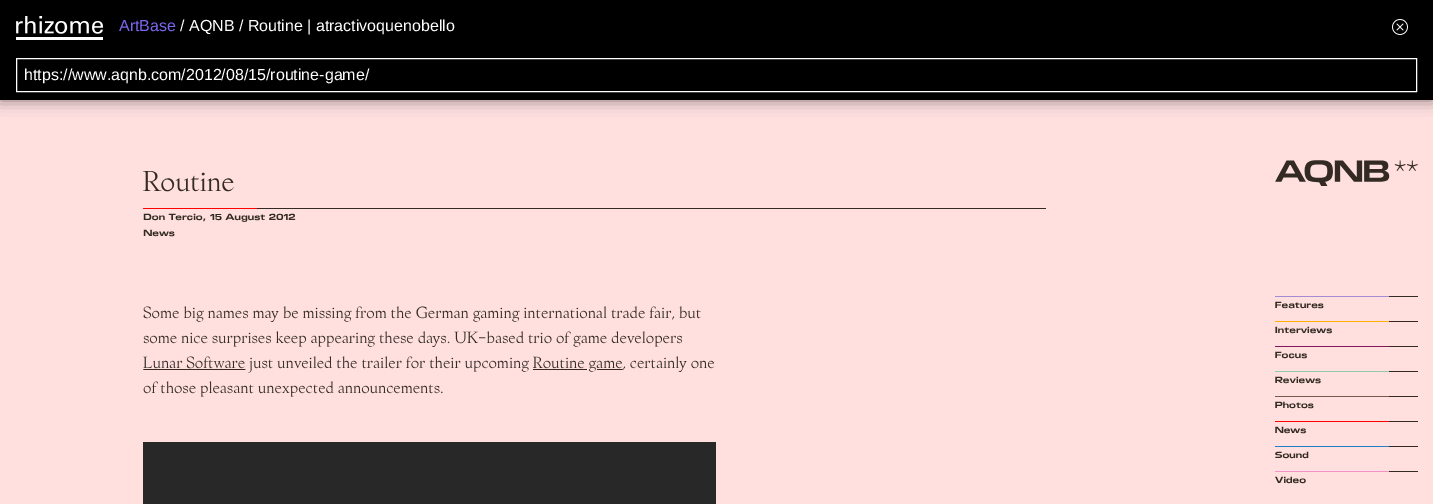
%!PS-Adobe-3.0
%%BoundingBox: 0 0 1433 504
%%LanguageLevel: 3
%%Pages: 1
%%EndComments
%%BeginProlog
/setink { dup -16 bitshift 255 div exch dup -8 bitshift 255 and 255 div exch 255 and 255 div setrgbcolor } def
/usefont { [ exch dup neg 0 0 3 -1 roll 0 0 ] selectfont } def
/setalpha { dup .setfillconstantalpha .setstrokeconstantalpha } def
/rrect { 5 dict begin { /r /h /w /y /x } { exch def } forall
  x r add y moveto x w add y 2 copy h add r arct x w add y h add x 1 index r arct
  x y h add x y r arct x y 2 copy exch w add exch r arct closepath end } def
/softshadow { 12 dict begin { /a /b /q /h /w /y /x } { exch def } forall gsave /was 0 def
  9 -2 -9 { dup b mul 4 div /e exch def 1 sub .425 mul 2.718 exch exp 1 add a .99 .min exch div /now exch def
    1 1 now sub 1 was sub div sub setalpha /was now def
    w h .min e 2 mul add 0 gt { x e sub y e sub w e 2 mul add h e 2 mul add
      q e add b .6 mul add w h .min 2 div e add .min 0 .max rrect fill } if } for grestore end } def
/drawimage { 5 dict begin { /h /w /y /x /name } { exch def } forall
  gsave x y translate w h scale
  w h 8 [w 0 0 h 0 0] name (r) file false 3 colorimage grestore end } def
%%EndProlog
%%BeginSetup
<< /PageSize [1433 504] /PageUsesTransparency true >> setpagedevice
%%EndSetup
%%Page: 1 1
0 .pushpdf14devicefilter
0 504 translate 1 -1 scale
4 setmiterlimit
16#FFFFFF setink
0 0 1433 504 rectfill
(img3.raw) 0 100 1433 404 drawimage
16#000000 setink
0 0 1433 100 0 7.5 0.5 softshadow
0 0 1433 100 rectfill
(img1.raw) 16 16 87 24 drawimage
/LiberationSans-Regular 16 usefont
16#7B68EE setink
119 31 moveto (ArtBase) show
16#FFFFFF setink
180 31 moveto (/ AQNB / Routine | atractivoquenobello) show
(img2.raw) 1392 19 16 16 drawimage
16.5 58.5 1400 33 rectstroke
24 80 moveto (https://www.aqnb.com/2012/08/15/routine-game/) show
.poppdf14devicefilter showpage
%%EOF
